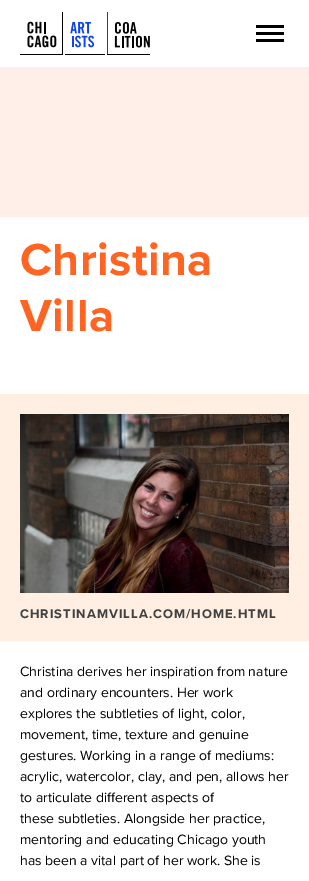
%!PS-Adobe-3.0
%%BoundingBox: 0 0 309 881
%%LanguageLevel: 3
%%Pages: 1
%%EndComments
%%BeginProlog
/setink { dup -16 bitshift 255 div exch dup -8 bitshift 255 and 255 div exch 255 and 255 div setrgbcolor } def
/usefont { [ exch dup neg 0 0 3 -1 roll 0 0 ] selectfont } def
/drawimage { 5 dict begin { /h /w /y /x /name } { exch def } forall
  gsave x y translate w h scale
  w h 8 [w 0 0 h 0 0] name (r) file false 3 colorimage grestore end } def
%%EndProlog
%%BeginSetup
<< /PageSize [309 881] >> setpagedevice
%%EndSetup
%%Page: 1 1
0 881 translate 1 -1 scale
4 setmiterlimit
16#FFFFFF setink
0 0 309 881 rectfill
(img1.raw) 20 12 130 43 drawimage
[
    [256 25 28 3 16#000000]
    [256 32 28 3 16#000000]
    [256 39 28 3 16#000000]
    [0 67 309 150 16#FFEFE8]
] { aload pop setink rectfill } forall
/ProximaNova-Bold 46.5 usefont
16#FF6422 setink
20 275 moveto 0.4 0 (Christina) ashow
20 331 moveto 0.4 0 (Villa) ashow
16#FFEFE3 setink
0 394 309 247 rectfill
(img2.raw) 20 414 269 179 drawimage
/ProximaNova-Bold 13 usefont
16#414141 setink
20 618 moveto 1 0 (CHRISTINAMVILLA.COM/HOME.HTML) ashow
/ProximaNova-Regular 14 usefont
16#000000 setink
[
    [(Christina derives her inspiration from nature) 20 676]
    [(and ordinary encounters. Her work) 20 697]
    [(explores the subtleties of light, color,) 20 718]
    [(movement, time, texture and genuine) 20 739]
    [(gestures. Working in a range of mediums:) 20 760]
    [(acrylic, watercolor, clay, and pen, allows her) 20 781]
    [(to articulate different aspects of) 20 802]
    [(these subtleties. Alongside her practice,) 20 823]
    [(mentoring and educating Chicago youth) 20 844]
    [(has been a vital part of her work. She is) 20 865]
] { aload pop moveto show } forall
showpage
%%EOF
